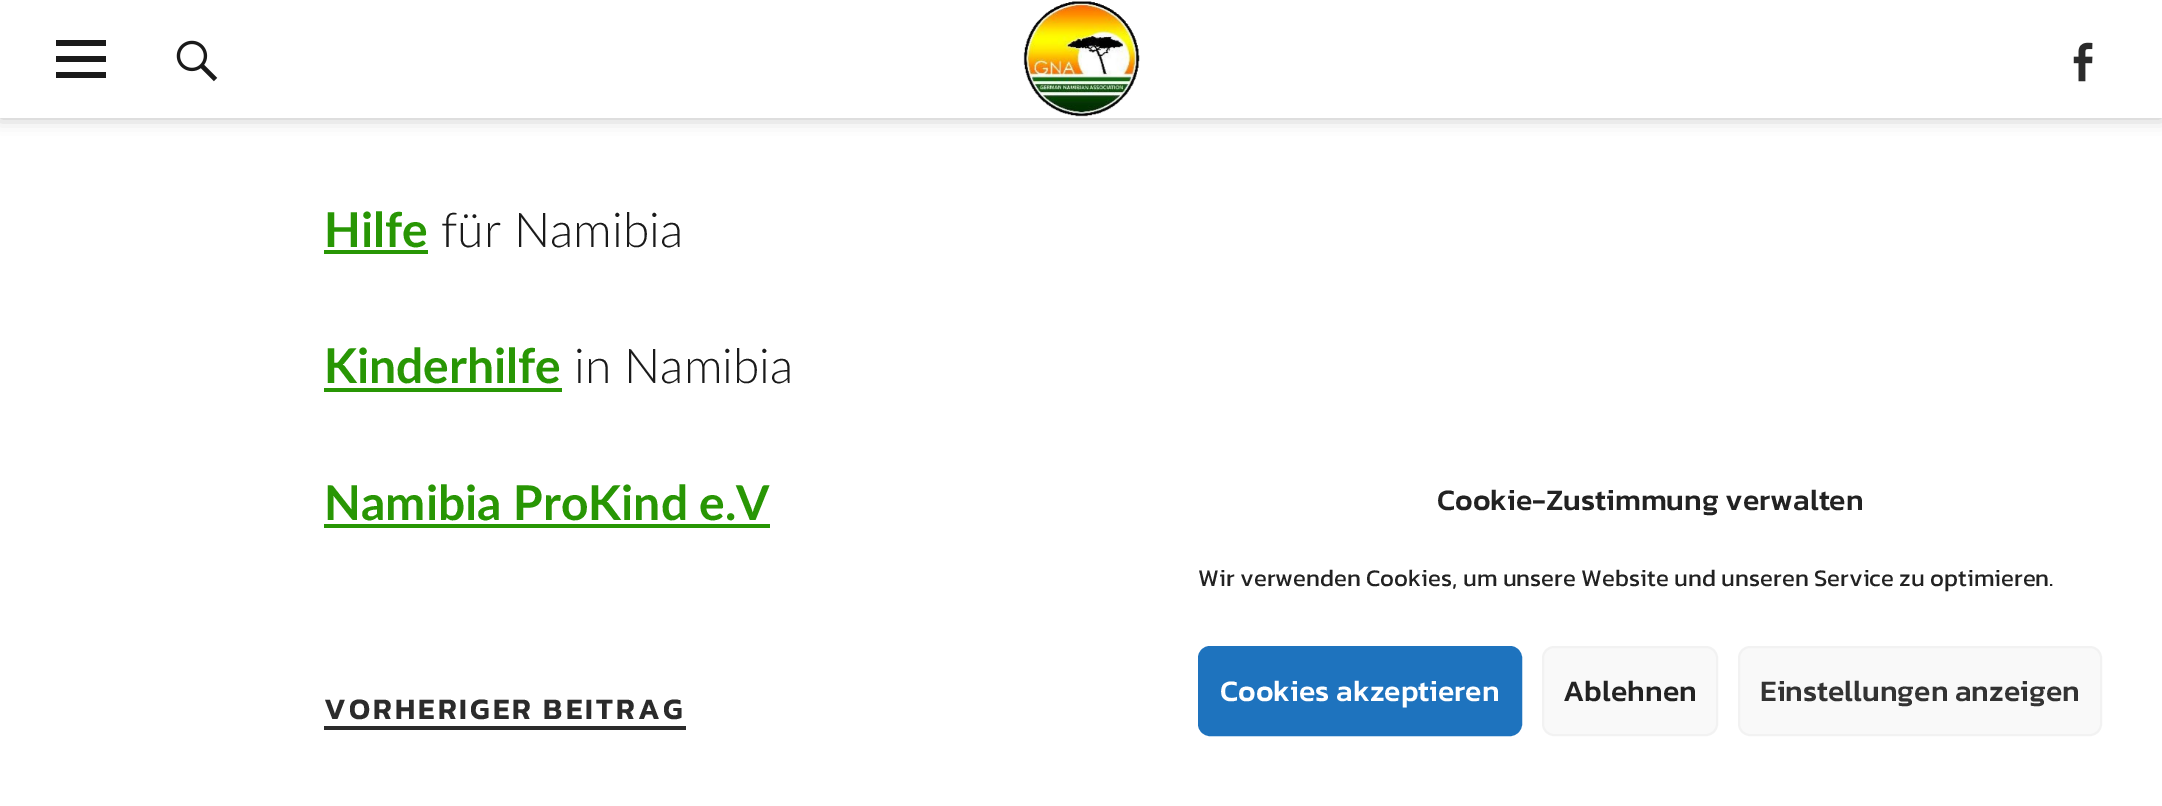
%!PS-Adobe-3.0
%%BoundingBox: 0 0 2162 806
%%LanguageLevel: 3
%%Pages: 1
%%EndComments
%%BeginProlog
/setink { dup -16 bitshift 255 div exch dup -8 bitshift 255 and 255 div exch 255 and 255 div setrgbcolor } def
/usefont { [ exch dup neg 0 0 3 -1 roll 0 0 ] selectfont } def
/setalpha { dup .setfillconstantalpha .setstrokeconstantalpha } def
/rrect { 5 dict begin { /r /h /w /y /x } { exch def } forall
  x r add y moveto x w add y 2 copy h add r arct x w add y h add x 1 index r arct
  x y h add x y r arct x y 2 copy exch w add exch r arct closepath end } def
/softshadow { 12 dict begin { /a /b /q /h /w /y /x } { exch def } forall gsave /was 0 def
  9 -2 -9 { dup b mul 4 div /e exch def 1 sub .425 mul 2.718 exch exp 1 add a .99 .min exch div /now exch def
    1 1 now sub 1 was sub div sub setalpha /was now def
    w h .min e 2 mul add 0 gt { x e sub y e sub w e 2 mul add h e 2 mul add
      q e add b .6 mul add w h .min 2 div e add .min 0 .max rrect fill } if } for grestore end } def
/drawimage { 5 dict begin { /h /w /y /x /name } { exch def } forall
  gsave x y translate w h scale
  w h 8 [w 0 0 h 0 0] name (r) file false 3 colorimage grestore end } def
%%EndProlog
%%BeginSetup
<< /PageSize [2162 806] /PageUsesTransparency true >> setpagedevice
%%EndSetup
%%Page: 1 1
0 .pushpdf14devicefilter
0 806 translate 1 -1 scale
4 setmiterlimit
16#FFFFFF setink
0 0 2162 806 rectfill
16#000000 setink
0 0 2162 118 0 8 0.25 softshadow
16#FFFFFF setink
0 0 2162 118 rectfill
16#1A1A1A setink
56 78 moveto 56 72 lineto 106 72 lineto 106 78 lineto closepath 56 40 moveto 106 40 lineto 106 46 lineto 56 46 lineto closepath 56 62 moveto 56 56 lineto 106 56 lineto 106 62 lineto closepath fill
(img1.raw) 176 40 42 42 drawimage
(img2.raw) 1023 1 117 116 drawimage
(img3.raw) 2073 42 20 40 drawimage
/Lato-Bold 48 usefont
16#289604 setink
324 247 moveto (Hilfe) show
324 250 104 4 rectfill
/Lato-Light 48 usefont
16#1A1A1A setink
441 247 moveto (für Namibia) show
/Lato-Bold 48 usefont
16#289604 setink
324 383 moveto (Kinderhilfe) show
324 388 238 4 rectfill
/Lato-Light 48 usefont
16#1A1A1A setink
574 383 moveto (in Namibia) show
/Lato-Bold 48 usefont
16#289604 setink
324 520 moveto (Namibia ProKind e.V) show
324 524 446 4 rectfill
16#2B2B2B setink
324 726 362 4 rectfill
/Kanit-SemiBold 30 usefont
324 719 moveto 3 0 (VORHERIGER BEITRAG) ashow
/Kanit-Medium 30 usefont
16#222222 setink
1437 510 moveto (Cookie-Zustimmung verwalten) show
/Kanit-Regular 24 usefont
1198 586 moveto (Wir verwenden Cookies, um unsere Website und unseren Service zu optimieren.) show
16#1E73BE setink
1199 647 322 88 11 rrect gsave fill grestore
2 setlinewidth
stroke
/Kanit-Medium 30 usefont
16#FFFFFF setink
1220 701 moveto (Cookies akzeptieren) show
16#F9F9F9 setink
1543 647 174 88 11 rrect gsave fill grestore
16#F2F2F2 setink
stroke
16#222222 setink
1563 701 moveto (Ablehnen) show
16#F9F9F9 setink
1739 647 362 88 11 rrect gsave fill grestore
16#F2F2F2 setink
stroke
16#333333 setink
1760 701 moveto (Einstellungen anzeigen) show
.poppdf14devicefilter showpage
%%EOF
